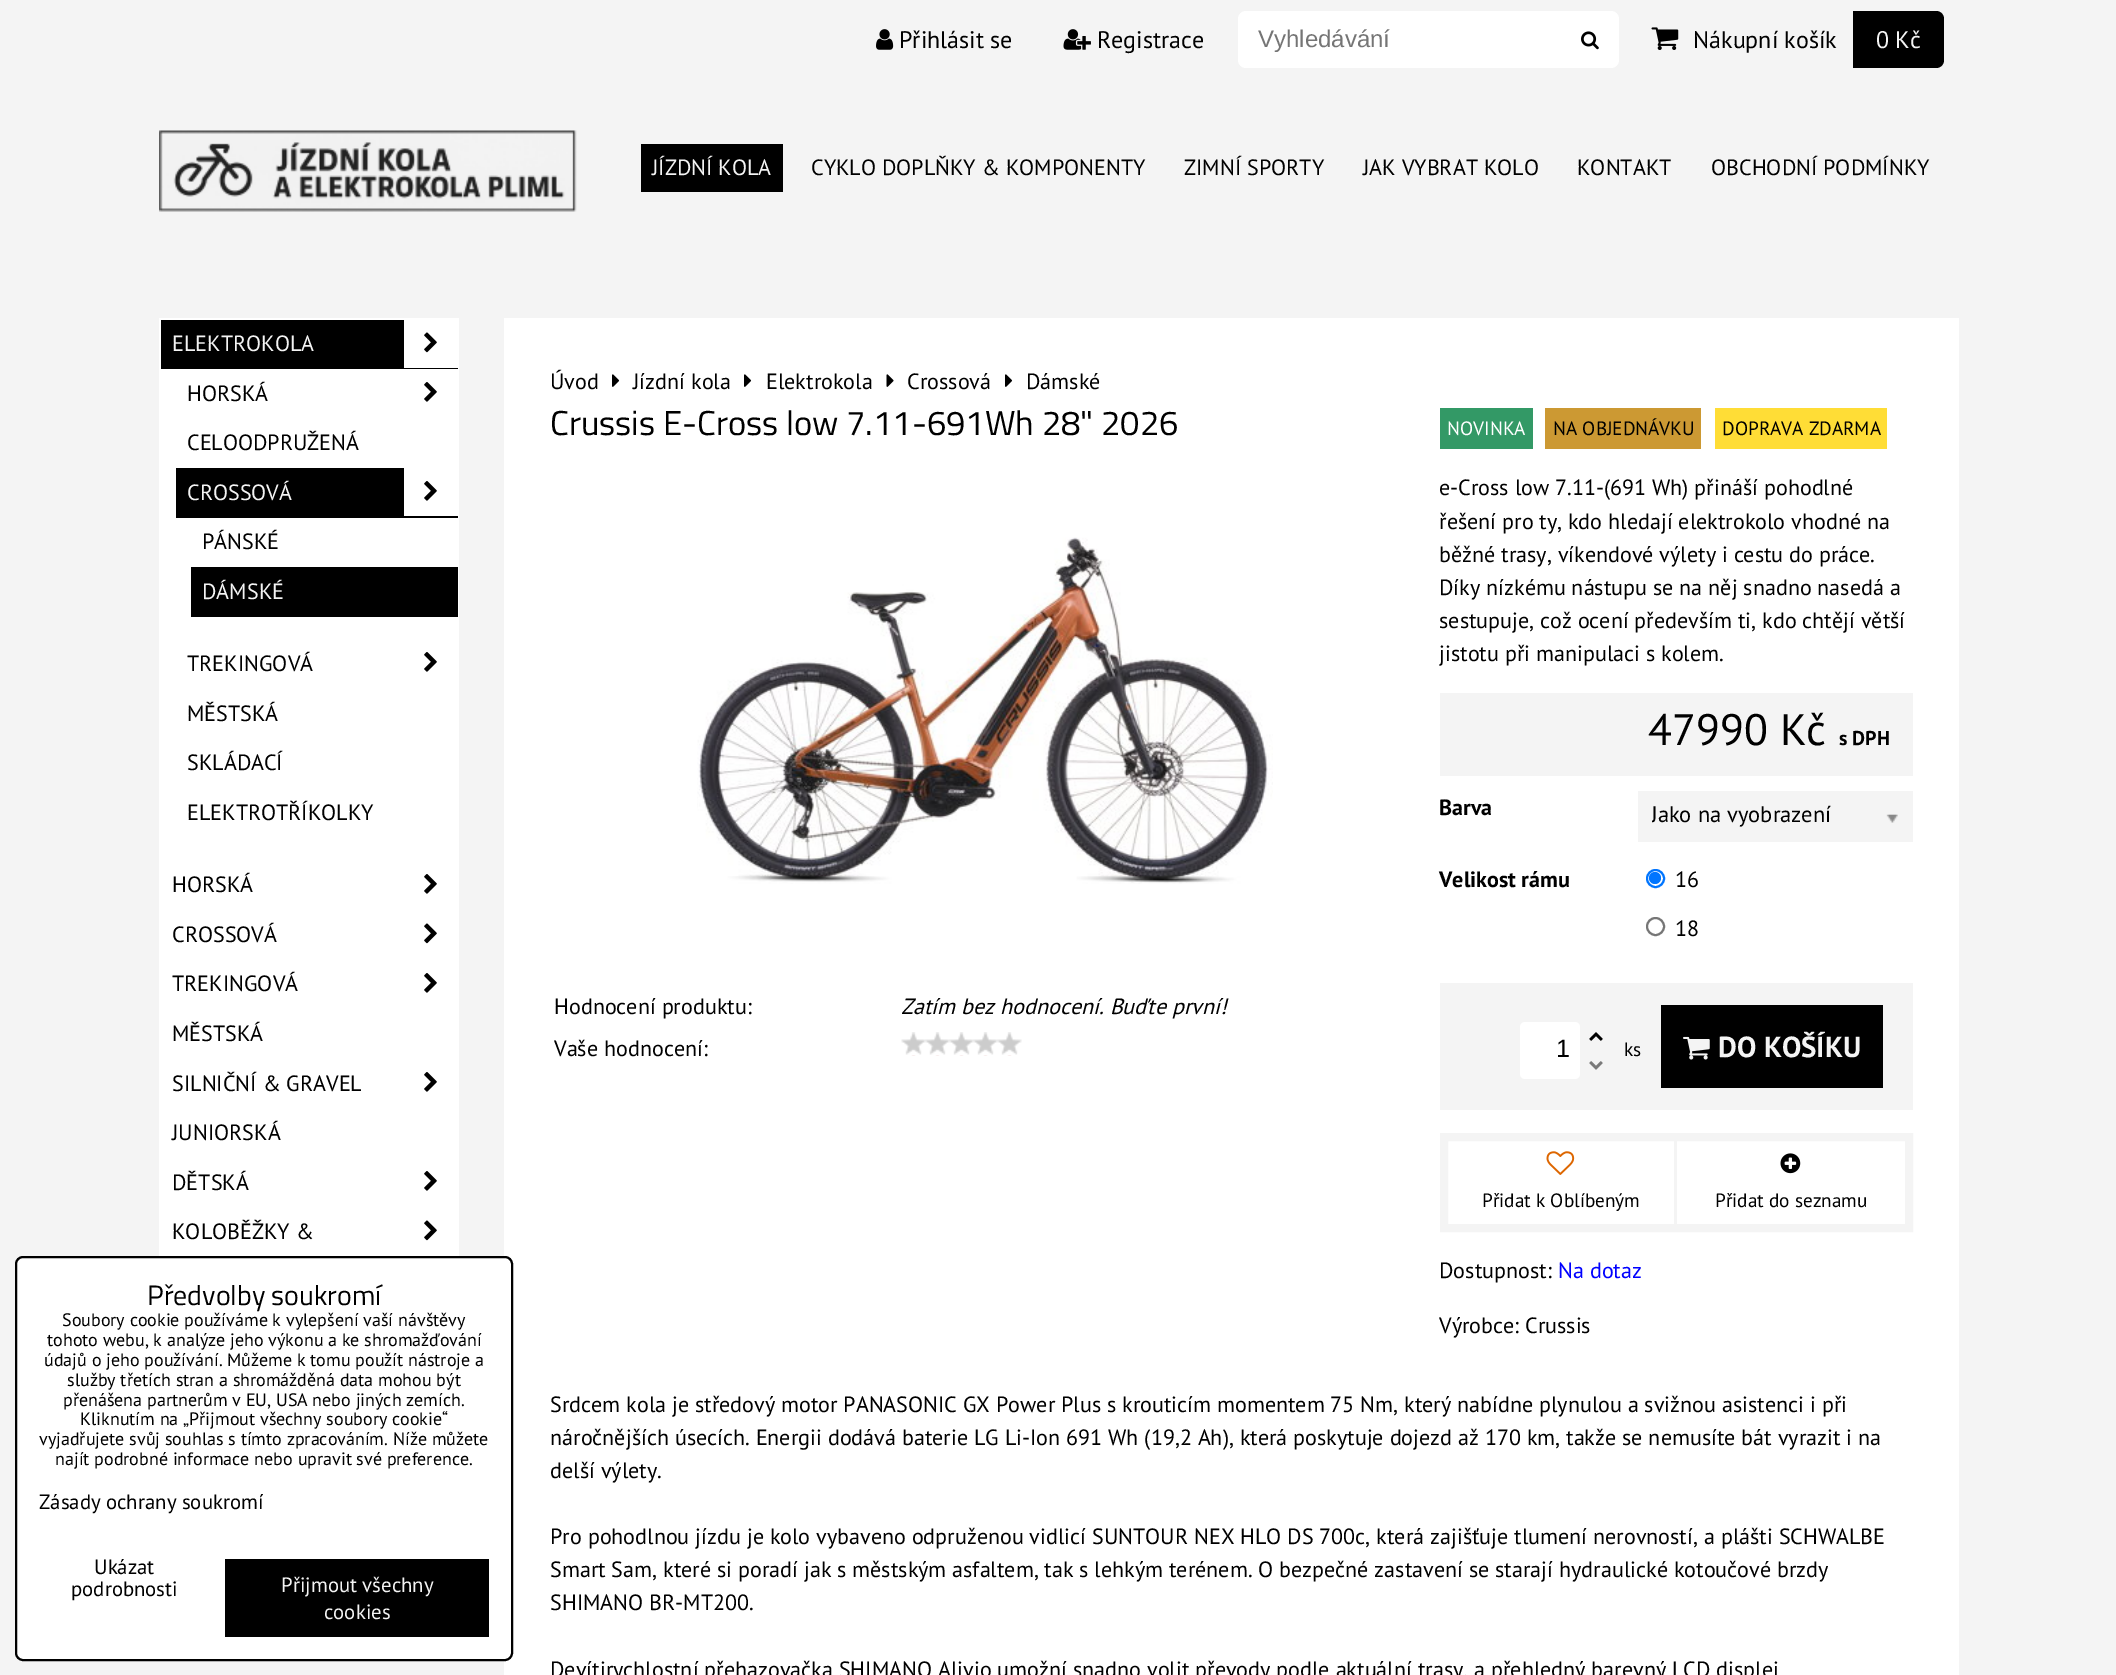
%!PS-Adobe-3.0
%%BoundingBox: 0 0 2116 1675
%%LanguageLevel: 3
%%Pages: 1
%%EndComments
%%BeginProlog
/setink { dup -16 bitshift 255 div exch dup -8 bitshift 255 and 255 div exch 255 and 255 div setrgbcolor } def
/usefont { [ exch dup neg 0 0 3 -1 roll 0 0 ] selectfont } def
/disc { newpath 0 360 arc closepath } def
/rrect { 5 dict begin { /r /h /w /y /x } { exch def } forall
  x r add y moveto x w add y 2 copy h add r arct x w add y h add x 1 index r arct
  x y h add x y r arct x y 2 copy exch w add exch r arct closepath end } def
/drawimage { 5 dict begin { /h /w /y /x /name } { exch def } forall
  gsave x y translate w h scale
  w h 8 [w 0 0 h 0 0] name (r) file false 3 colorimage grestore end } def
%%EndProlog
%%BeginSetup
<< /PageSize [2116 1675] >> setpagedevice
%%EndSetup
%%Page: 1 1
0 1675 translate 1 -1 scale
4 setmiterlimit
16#F4F4F4 setink
0 0 2116 1675 rectfill
(img1.raw) 876 29 18 21 drawimage
/PTSans-Regular 24 usefont
16#000000 setink
899 48 moveto (Přihlásit se) show
(img2.raw) 1063 29 28 21 drawimage
1097 48 moveto (Registrace) show
16#FFFFFF setink
1238 11 381 57 8 rrect fill
/LiberationSans-Regular 24 usefont
16#757575 setink
1258 47 moveto (Vyhledávání) show
(img3.raw) 1581 31 18 19 drawimage
(img4.raw) 1651 27 28 23 drawimage
/PTSans-Regular 24 usefont
16#000000 setink
1693 48 moveto (Nákupní košík) show
1853 11 moveto 1936 11 lineto 1940.5 11 1944 14.5 1944 19 curveto 1944 60 lineto 1944 64.5 1940.5 68 1936 68 curveto 1853 68 lineto closepath fill
16#F4F4F4 setink
1876 48 moveto (0 Kč) show
(img5.raw) 159 130 418 82 drawimage
16#000000 setink
641 144 142 48 rectfill
/PTSans-Regular 22.08 usefont
16#F4F4F4 setink
652 175 moveto (JÍZDNÍ KOLA) show
16#000000 setink
[
    [(CYKLO DOPLŇKY & KOMPONENTY) 811 175]
    [(ZIMNÍ SPORTY) 1184 175]
    [(JAK VYBRAT KOLO) 1363 175]
    [(KONTAKT) 1577 175]
    [(OBCHODNÍ PODMÍNKY) 1711 175]
] { aload pop moveto show } forall
16#FFFFFF setink
159 318 300 938 rectfill
16#000000 setink
161 320 297 49 rectfill
16#F4F4F4 setink
172 351 moveto (ELEKTROKOLA) show
16#FFFFFF setink
404 320 54 48 rectfill
(img6.raw) 424 332 13 21 drawimage
16#000000 setink
187 401 moveto (HORSKÁ) show
(img7.raw) 424 382 13 20 drawimage
187 450 moveto (CELOODPRUŽENÁ) show
176 468 282 50 rectfill
16#F4F4F4 setink
187 500 moveto (CROSSOVÁ) show
16#FFFFFF setink
404 468 54 48 rectfill
(img7.raw) 424 481 13 20 drawimage
16#000000 setink
202 549 moveto (PÁNSKÉ) show
191 567 267 50 rectfill
16#F4F4F4 setink
202 599 moveto (DÁMSKÉ) show
16#000000 setink
187 671 moveto (TREKINGOVÁ) show
(img7.raw) 424 652 13 20 drawimage
[
    [(MĚSTSKÁ) 187 721]
    [(SKLÁDACÍ) 187 770]
    [(ELEKTROTŘÍKOLKY) 187 820]
    [(HORSKÁ) 172 892]
] { aload pop moveto show } forall
(img7.raw) 424 874 13 20 drawimage
172 942 moveto (CROSSOVÁ) show
(img6.raw) 424 923 13 21 drawimage
172 991 moveto (TREKINGOVÁ) show
(img7.raw) 424 973 13 20 drawimage
172 1041 moveto (MĚSTSKÁ) show
172 1091 moveto (SILNIČNÍ & GRAVEL) show
(img7.raw) 424 1072 13 20 drawimage
172 1140 moveto (JUNIORSKÁ) show
172 1190 moveto (DĚTSKÁ) show
(img7.raw) 424 1171 13 20 drawimage
172 1239 moveto (KOLOBĚŽKY &) show
(img6.raw) 424 1220 13 21 drawimage
16#FFFFFF setink
504 318 1455 1357 rectfill
16#000000 setink
550 389 moveto (Úvod) show
(img8.raw) 612 374 8 13 drawimage
633 389 moveto (Jízdní kola) show
(img8.raw) 744 374 8 13 drawimage
766 389 moveto (Elektrokola) show
(img9.raw) 886 374 8 13 drawimage
907 389 moveto (Crossová) show
(img8.raw) 1005 374 8 13 drawimage
1026 389 moveto (Dámské) show
/TitilliumWeb-Regular 34.6 usefont
550 435 moveto (Crussis E-Cross low 7.11-691Wh 28" 2026) show
(img10.raw) 697 537 576 347 drawimage
/PTSans-Regular 22.08 usefont
554 1014 moveto (Hodnocení produktu:) show
/PTSans-Italic 22.08 usefont
901 1014 moveto (Zatím bez hodnocení. Buďte první!) show
/PTSans-Regular 22.08 usefont
554 1056 moveto (Vaše hodnocení:) show
(img11.raw) 901 1032 121 24 drawimage
16#339966 setink
1440 408 93 41 rectfill
/PTSans-Regular 19.25 usefont
16#FFFFFF setink
1447 435 moveto (NOVINKA) show
16#CC9933 setink
1545 408 156 41 rectfill
16#000000 setink
1553 435 moveto (NA OBJEDNÁVKU) show
16#FFDD36 setink
1715 408 172 41 rectfill
16#000000 setink
1722 435 moveto (DOPRAVA ZDARMA) show
/PTSans-Regular 22.08 usefont
[
    [(e-Cross low 7.11-\(691 Wh\) přináší pohodlné) 1439 495]
    [(řešení pro ty, kdo hledají elektrokolo vhodné na) 1439 529]
    [(běžné trasy, víkendové výlety i cestu do práce.) 1439 562]
    [(Díky nízkému nástupu se na něj snadno nasedá a) 1439 595]
    [(sestupuje, což ocení především ti, kdo chtějí větší) 1439 628]
    [(jistotu při manipulaci s kolem.) 1439 661]
] { aload pop moveto show } forall
16#F4F4F4 setink
1440 693 473 83 rectfill
/PTSans-Regular 44 usefont
16#000000 setink
1648 745 moveto (47990 Kč) show
/PTSans-Bold 20 usefont
1839 745 moveto (s DPH) show
/PTSans-Bold 22.08 usefont
1439 815 moveto (Barva) show
16#F4F4F4 setink
1638 791 275 51 rectfill
gsave
1652 798 220 35 rectclip
/PTSans-Regular 22.5 usefont
16#000000 setink
1651 822 moveto (Jako na vyobrazení) show
grestore
(img12.raw) 1886 814 12 9 drawimage
16#000000 setink
1439 887 moveto (Velikost rámu) show
16#0075FF setink
2 setlinewidth
1655.5 878.5 8.5 disc stroke
1655 878 6 disc fill
/PTSans-Regular 22.08 usefont
16#000000 setink
1675 887 moveto (16) show
16#767676 setink
1655.5 926.5 8.5 disc stroke
16#000000 setink
1675 936 moveto (18) show
16#F4F4F4 setink
1440 983 473 127 rectfill
16#FFFFFF setink
1520 1022 60 57 5 rrect fill
/LiberationSans-Regular 25 usefont
16#000000 setink
1556 1057 moveto (1) show
(img13.raw) 1589 1032 14 9 drawimage
(img14.raw) 1589 1061 14 9 drawimage
/PTSans-Regular 19.25 usefont
1624 1056 moveto (ks) show
1661 1005 222 83 rectfill
(img15.raw) 1683 1036 27 24 drawimage
/PTSans-Bold 29 usefont
16#F4F4F4 setink
1718 1057 moveto (DO KOŠÍKU) show
8 setlinewidth
1444 1137 465 91 rectstroke
(img16.raw) 1546 1151 29 24 drawimage
/PTSans-Regular 19.25 usefont
16#000000 setink
1482 1207 moveto (Přidat k Oblíbeným) show
16#F4F4F4 setink
1674 1140 3 84 rectfill
(img17.raw) 1780 1153 21 21 drawimage
16#000000 setink
1715 1207 moveto (Přidat do seznamu) show
/PTSans-Regular 22.08 usefont
1439 1278 moveto (Dostupnost:) show
16#0000FF setink
1558 1278 moveto (Na dotaz) show
16#000000 setink
[
    [(Výrobce: Crussis) 1439 1333]
    [(Srdcem kola je středový motor PANASONIC GX Power Plus s krouticím momentem 75 Nm, který nabídne plynulou a svižnou asistenci i při) 550 1412]
    [(náročnějších úsecích. Energii dodává baterie LG Li-Ion 691 Wh \(19,2 Ah\), která poskytuje dojezd až 170 km, takže se nemusíte bát vyrazit i na) 550 1445]
    [(delší výlety.) 550 1478]
    [(Pro pohodlnou jízdu je kolo vybaveno odpruženou vidlicí SUNTOUR NEX HLO DS 700c, která zajišťuje tlumení nerovností, a plášti SCHWALBE) 550 1544]
    [(Smart Sam, které si poradí jak s městským asfaltem, tak s lehkým terénem. O bezpečné zastavení se starají hydraulické kotoučové brzdy) 550 1577]
    [(SHIMANO BR-MT200.) 550 1610]
    [(Devítirychlostní přehazovačka SHIMANO Alivio umožní snadno volit převody podle aktuální trasy, a přehledný barevný LCD displej) 550 1677]
] { aload pop moveto show } forall
16#FFFFFF setink
16 1257 496 403 7 rrect gsave fill grestore
16#000000 setink
2 setlinewidth
stroke
/TitilliumWeb-Regular 28 usefont
147 1305 moveto (Předvolby soukromí) show
/PTSans-Regular 18 usefont
[
    [(Soubory cookie používáme k vylepšení vaší návštěvy) 62 1326]
    [(tohoto webu, k analýze jeho výkonu a ke shromažďování) 47 1346]
    [(údajů o jeho používání. Můžeme k tomu použít nástroje a) 44 1366]
    [(služby třetích stran a shromážděná data mohou být) 67 1386]
    [(přenášena partnerům v EU, USA nebo jiných zemích.) 63 1406]
    [(Kliknutím na „Přijmout všechny soubory cookie“) 80 1425]
    [(vyjadřujete svůj souhlas s tímto zpracováním. Níže můžete) 39 1445]
    [(najít podrobné informace nebo upravit své preference.) 55 1465]
] { aload pop moveto show } forall
/PTSans-Regular 20.75 usefont
[
    [(Zásady ochrany soukromí) 39 1509]
    [(Ukázat) 94 1574]
    [(podrobnosti) 71 1596]
] { aload pop moveto show } forall
225 1559 264 78 rectfill
16#F4F4F4 setink
281 1592 moveto (Přijmout všechny) show
324 1619 moveto (cookies) show
showpage
%%EOF
